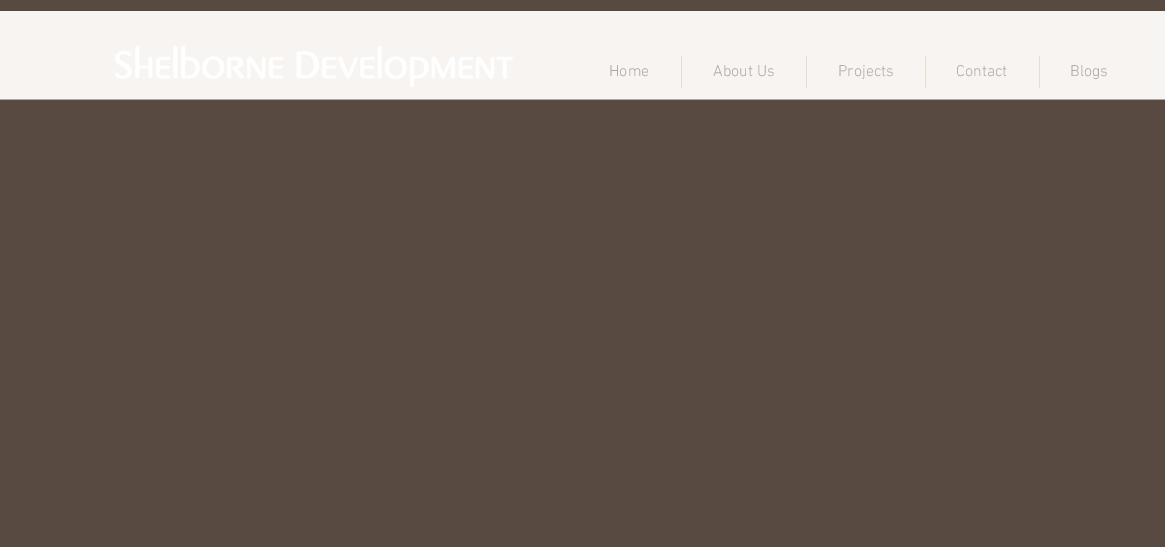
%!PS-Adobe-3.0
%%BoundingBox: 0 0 1165 547
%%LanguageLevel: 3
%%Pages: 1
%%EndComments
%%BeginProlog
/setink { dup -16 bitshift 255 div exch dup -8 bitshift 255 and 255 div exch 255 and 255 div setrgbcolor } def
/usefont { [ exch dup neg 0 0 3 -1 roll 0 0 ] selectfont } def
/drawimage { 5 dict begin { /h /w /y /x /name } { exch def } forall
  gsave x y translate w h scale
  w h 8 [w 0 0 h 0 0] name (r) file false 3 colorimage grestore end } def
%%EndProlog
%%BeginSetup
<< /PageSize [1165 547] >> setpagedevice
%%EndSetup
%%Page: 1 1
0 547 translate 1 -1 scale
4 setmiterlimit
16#584A41 setink
0 0 1165 547 rectfill
16#F8F4F1 setink
0 11 1165 88 rectfill
16#A8A9AB setink
0 99 1165 1 rectfill
(img1.raw) 115 46 398 41 drawimage
/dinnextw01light-Light 16 usefont
16#ABABAB setink
609 76 moveto (Home) show
16#E7DECF setink
681 56 1 32 rectfill
16#ABABAB setink
713 76 moveto (About Us) show
16#E7DECF setink
806 56 1 32 rectfill
16#ABABAB setink
838 76 moveto (Projects) show
16#E7DECF setink
925 56 1 32 rectfill
16#ABABAB setink
956 76 moveto (Contact) show
16#E7DECF setink
1039 56 1 32 rectfill
16#ABABAB setink
1070 76 moveto (Blogs) show
showpage
%%EOF
